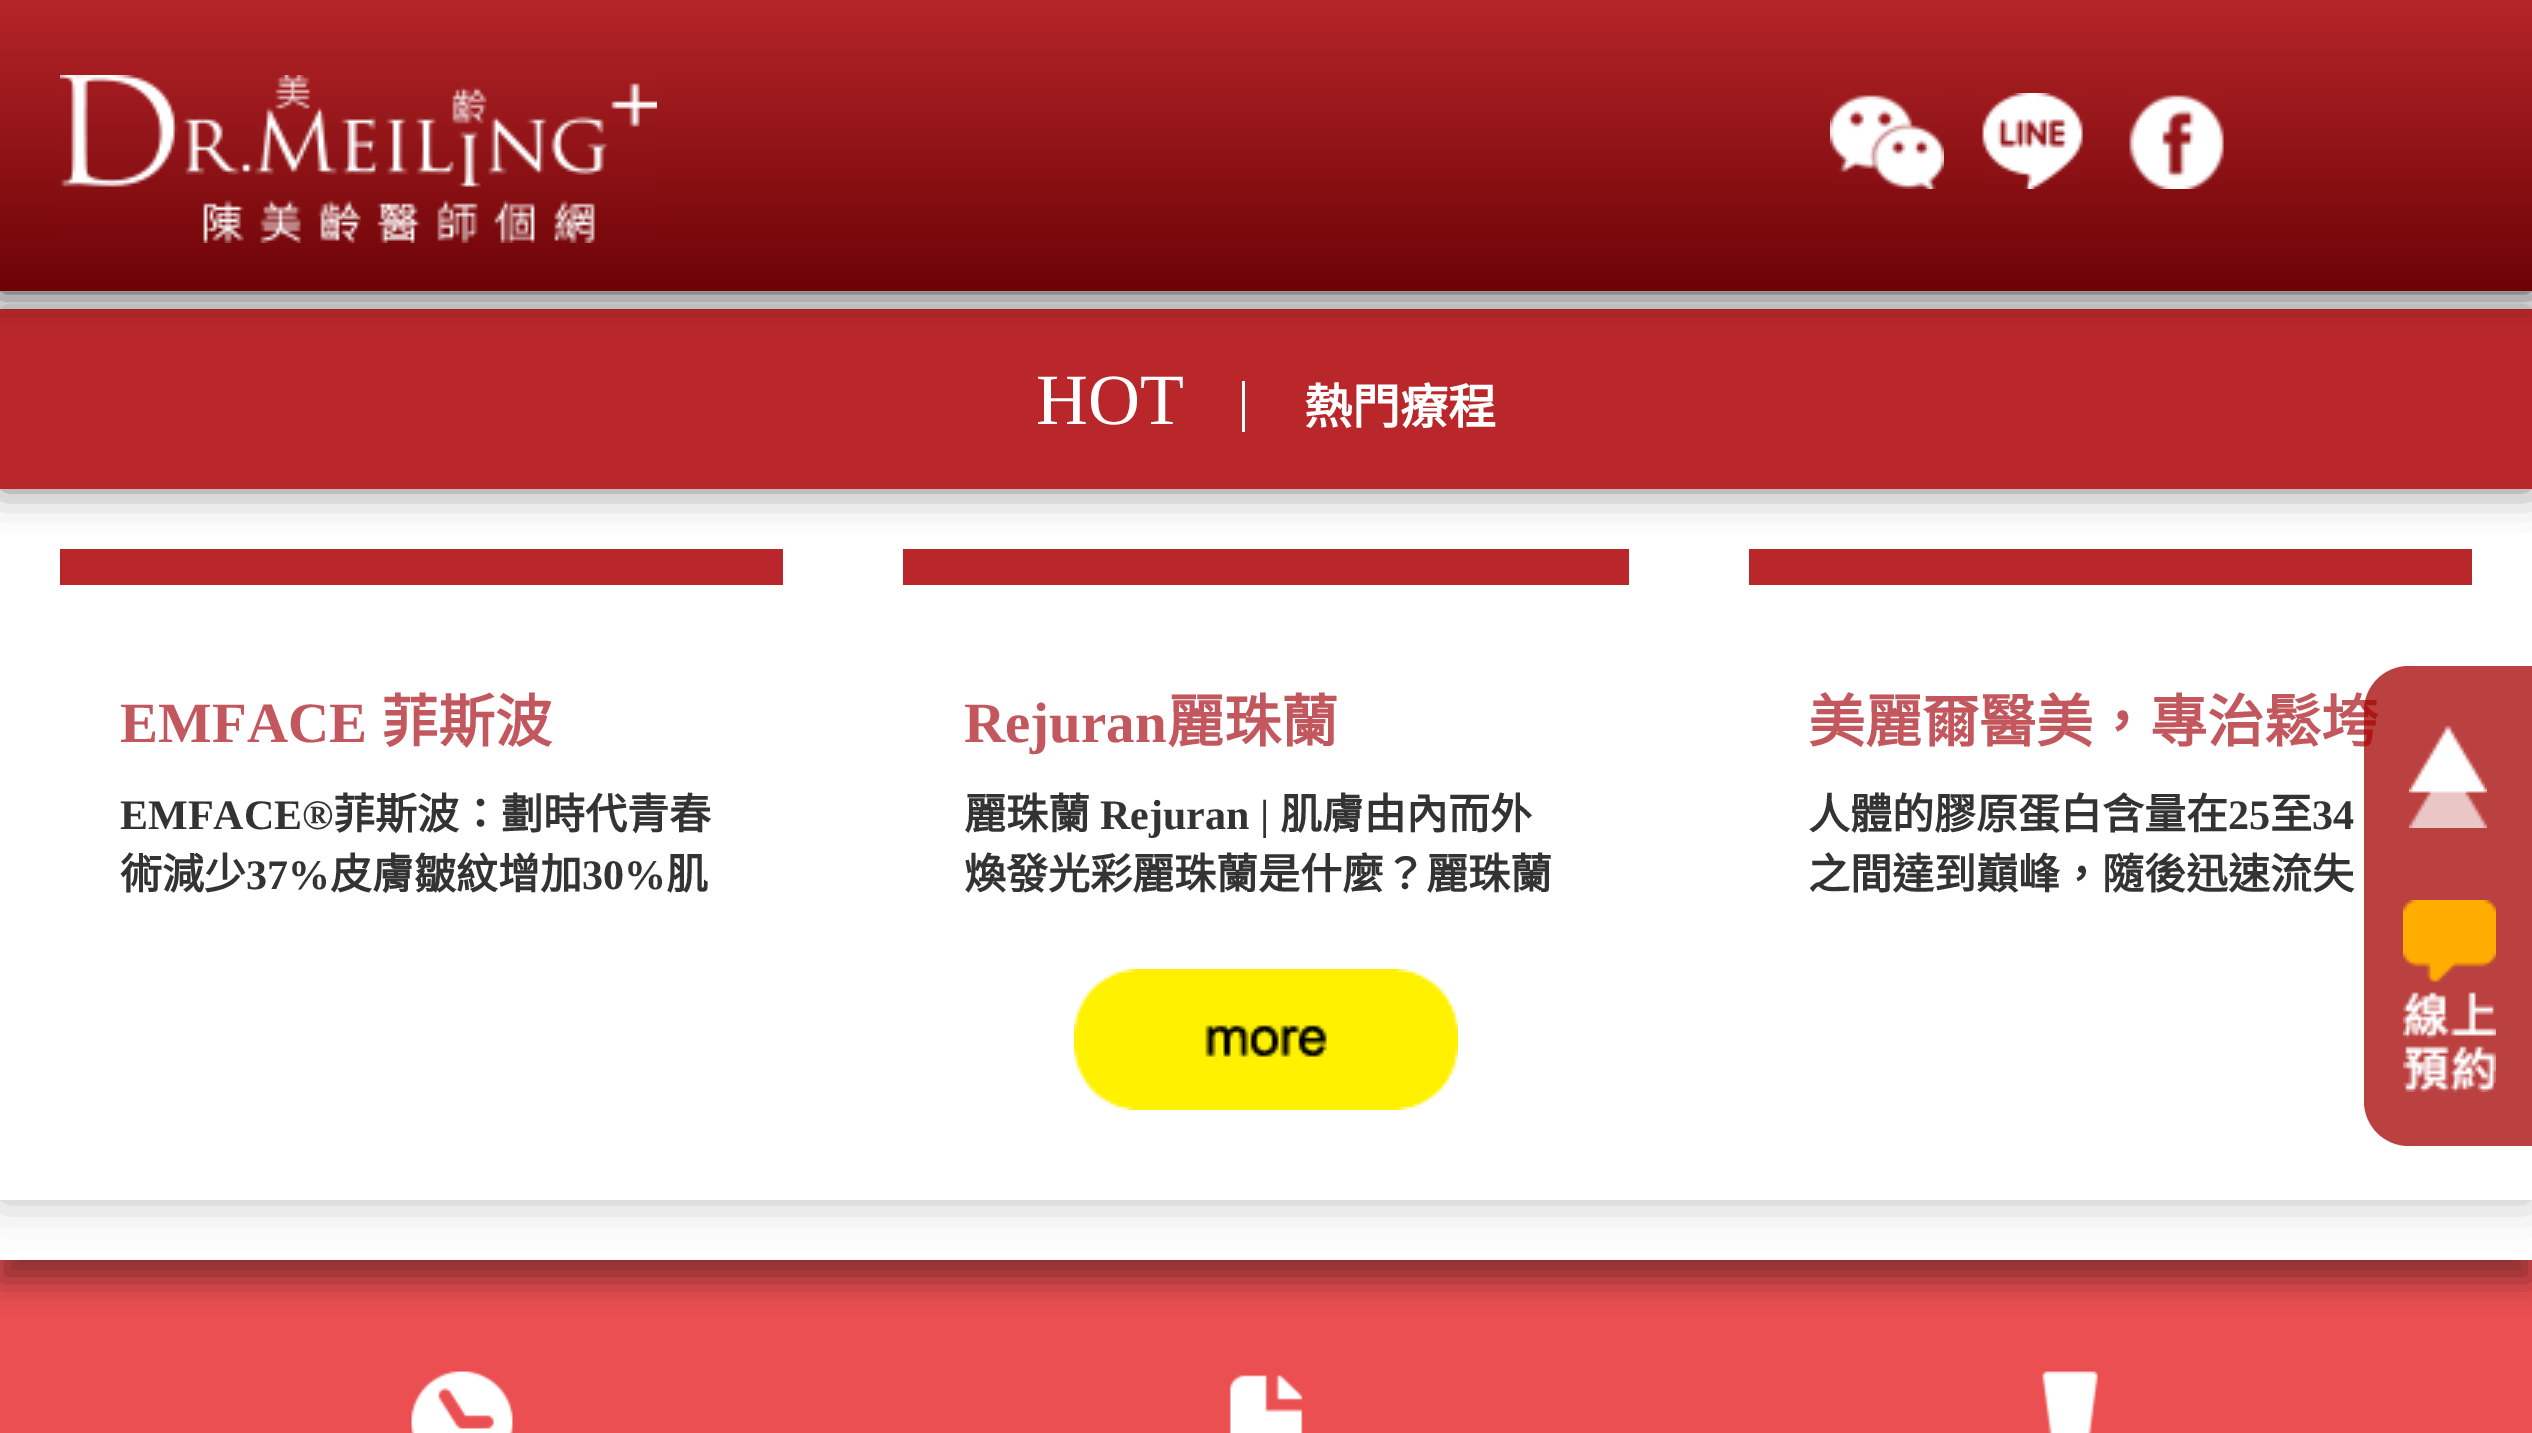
%!PS-Adobe-3.0
%%BoundingBox: 0 0 2532 1433
%%LanguageLevel: 3
%%Pages: 1
%%EndComments
%%BeginProlog
/setink { dup -16 bitshift 255 div exch dup -8 bitshift 255 and 255 div exch 255 and 255 div setrgbcolor } def
/usefont { [ exch dup neg 0 0 3 -1 roll 0 0 ] selectfont } def
/setalpha { dup .setfillconstantalpha .setstrokeconstantalpha } def
/rrect { 5 dict begin { /r /h /w /y /x } { exch def } forall
  x r add y moveto x w add y 2 copy h add r arct x w add y h add x 1 index r arct
  x y h add x y r arct x y 2 copy exch w add exch r arct closepath end } def
/softshadow { 12 dict begin { /a /b /q /h /w /y /x } { exch def } forall gsave /was 0 def
  9 -2 -9 { dup b mul 4 div /e exch def 1 sub .425 mul 2.718 exch exp 1 add a .99 .min exch div /now exch def
    1 1 now sub 1 was sub div sub setalpha /was now def
    w h .min e 2 mul add 0 gt { x e sub y e sub w e 2 mul add h e 2 mul add
      q e add b .6 mul add w h .min 2 div e add .min 0 .max rrect fill } if } for grestore end } def
/drawimage { 5 dict begin { /h /w /y /x /name } { exch def } forall
  gsave x y translate w h scale
  w h 8 [w 0 0 h 0 0] name (r) file false 3 colorimage grestore end } def
%%EndProlog
%%BeginSetup
<< /PageSize [2532 1433] /PageUsesTransparency true >> setpagedevice
%%EndSetup
%%Page: 1 1
0 .pushpdf14devicefilter
0 1433 translate 1 -1 scale
4 setmiterlimit
16#EB4F52 setink
0 0 2532 1433 rectfill
16#FFFFFF setink
0 291 2532 18 rectfill
16#000000 setink
0 330 2532 951 0 15 0.4 softshadow
16#FFFFFF setink
0 489 2532 771 rectfill
gsave
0 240 moveto 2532 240 lineto 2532 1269 lineto 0 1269 lineto closepath 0 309 moveto 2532 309 lineto 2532 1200 lineto 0 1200 lineto closepath eoclip newpath
16#000000 setink
0 309 2532 891 0 22.5 0.25 softshadow
grestore
gsave
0 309 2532 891 rectclip
16#000000 setink
0 309 2532 180 0 19.5 0.5 softshadow
grestore
16#B9272A setink
0 309 2532 180 rectfill
16#000000 setink
0 0 2532 291 0 15 0.8 softshadow
gsave 0 0 moveto 2532 0 lineto 2532 291 lineto 0 291 lineto closepath clip newpath
<< /ShadingType 2 /ColorSpace /DeviceRGB /Coords [1266 0 1266 291] /Extend [true true] /Function << /FunctionType 2 /Domain [0 1] /C0 [0.71 0.145 0.161] /C1 [0.427 0.012 0.024] /N 1 >> >> shfill grestore
(img1.raw) 60 75 597 168 drawimage
(img2.raw) 1830 95 114 94 drawimage
(img3.raw) 1982 93 101 96 drawimage
(img4.raw) 2129 95 95 94 drawimage
/LiberationSerif-Regular 72 usefont
16#FFFFFF setink
1036 424 moveto (HOT) show
1242 381 3 51 rectfill
/NotoSansCJKTC-Bold 48 usefont
1304 424 moveto (熱門療程) show
16#B9272B setink
60 549 723 36 rectfill
/LiberationSerif-Bold 57 usefont
16#C2575D setink
120 742 moveto (EMFACE) show
/NotoSansCJKTC-Bold 57 usefont
381 742 moveto (菲斯波) show
/LiberationSerif-Bold 42 usefont
16#333333 setink
120 829 moveto (EMFACE®) show
/NotoSansCJKTC-Bold 42 usefont
333 829 moveto (菲斯波：劃時代青春) show
120 889 moveto (術減少) show
/LiberationSerif-Bold 42 usefont
246 889 moveto (37%) show
/NotoSansCJKTC-Bold 42 usefont
330 889 moveto (皮膚皺紋增加) show
/LiberationSerif-Bold 42 usefont
582 889 moveto (30%) show
/NotoSansCJKTC-Bold 42 usefont
666 889 moveto (肌) show
16#B9272B setink
903 549 726 36 rectfill
/LiberationSerif-Bold 57 usefont
16#C2575D setink
964 742 moveto (Rejuran) show
/NotoSansCJKTC-Bold 57 usefont
1167 742 moveto (麗珠蘭) show
/NotoSansCJKTC-Bold 42 usefont
16#333333 setink
964 829 moveto (麗珠蘭) show
/LiberationSerif-Bold 42 usefont
1100 829 moveto (Rejuran |) show
/NotoSansCJKTC-Bold 42 usefont
1280 829 moveto (肌膚由內而外) show
964 889 moveto (煥發光彩麗珠蘭是什麼？麗珠蘭) show
16#B9272B setink
1749 549 723 36 rectfill
/NotoSansCJKTC-Bold 57 usefont
16#C2575D setink
1808 742 moveto (美麗爾醫美，專治鬆垮) show
/NotoSansCJKTC-Bold 42 usefont
16#333333 setink
1808 829 moveto (人體的膠原蛋白含量在) show
/LiberationSerif-Bold 42 usefont
2228 829 moveto (25) show
/NotoSansCJKTC-Bold 42 usefont
2270 829 moveto (至) show
/LiberationSerif-Bold 42 usefont
2312 829 moveto (34) show
/NotoSansCJKTC-Bold 42 usefont
1808 889 moveto (之間達到巔峰，隨後迅速流失) show
(img5.raw) 1074 969 384 141 drawimage
(img6.raw) 411 1371 102 62 drawimage
(img7.raw) 1229 1375 74 58 drawimage
(img8.raw) 2042 1371 56 62 drawimage
0.75 setalpha
16#A40000 setink
2409 666 moveto 2532 666 lineto 2532 1146 lineto 2409 1146 lineto 2384 1146 2364 1126 2364 1101 curveto 2364 711 lineto 2364 686 2384 666 2409 666 curveto closepath fill
1 setalpha
(img9.raw) 2409 726 78 102 drawimage
(img10.raw) 2403 900 93 192 drawimage
.poppdf14devicefilter showpage
%%EOF
